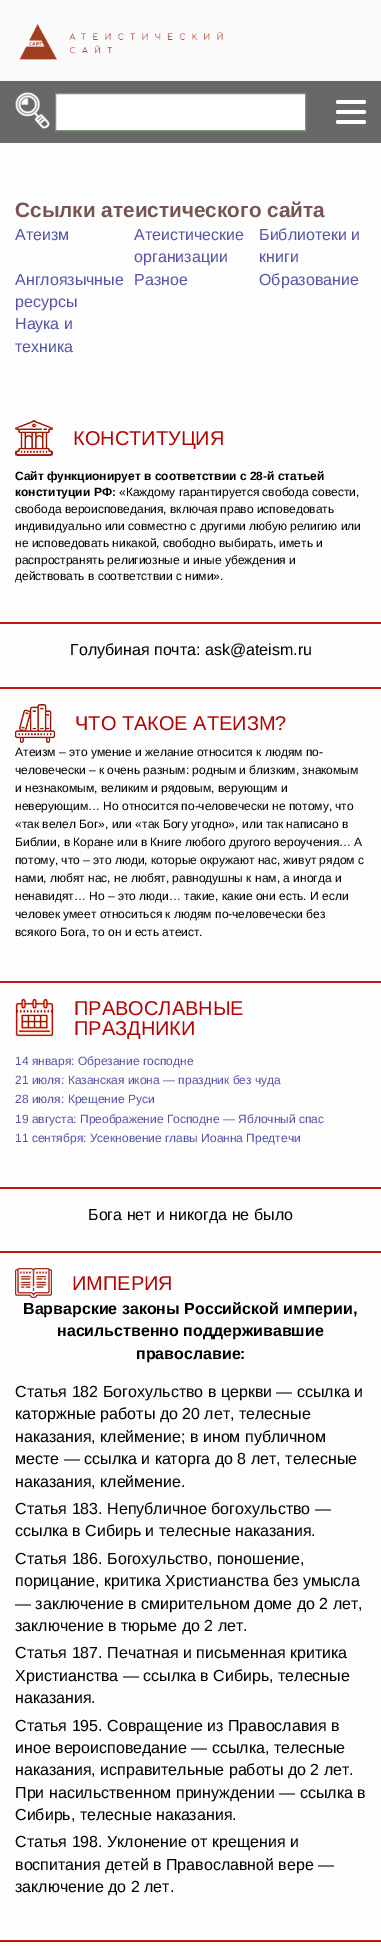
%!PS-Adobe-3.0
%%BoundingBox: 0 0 381 1946
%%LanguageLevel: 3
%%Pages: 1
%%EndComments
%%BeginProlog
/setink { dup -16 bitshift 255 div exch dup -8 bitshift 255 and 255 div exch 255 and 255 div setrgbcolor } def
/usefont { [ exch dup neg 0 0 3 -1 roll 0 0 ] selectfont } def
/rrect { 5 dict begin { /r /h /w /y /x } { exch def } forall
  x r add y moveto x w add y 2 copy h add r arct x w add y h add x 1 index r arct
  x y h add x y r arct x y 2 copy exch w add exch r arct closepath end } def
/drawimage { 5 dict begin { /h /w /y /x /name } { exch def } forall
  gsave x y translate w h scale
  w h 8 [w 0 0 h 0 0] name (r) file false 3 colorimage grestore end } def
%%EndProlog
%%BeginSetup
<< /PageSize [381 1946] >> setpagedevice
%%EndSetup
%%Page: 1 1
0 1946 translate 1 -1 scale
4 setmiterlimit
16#FBFAFA setink
0 0 381 1946 rectfill
(img1.raw) 19 24 204 36 drawimage
16#686868 setink
0 81 381 62 rectfill
(img2.raw) 15 92 35 37 drawimage
16#FFFFFF setink
55.5 93.5 moveto 305.5 93.5 lineto 305.5 130.5 lineto 55.5 130.5 lineto closepath gsave fill grestore
16#799A7A setink
stroke
16#FFFFFF setink
336 100 30 4 2 rrect fill
336 110 30 4 2 rrect fill
336 120 30 4 2 rrect fill
16#FDFDFD setink
0 143 381 1803 rectfill
/LiberationSans-Bold 20.75 usefont
16#775555 setink
15 217 moveto (Ссылки атеистического сайта) show
/LiberationSans-Regular 16 usefont
16#5555A9 setink
[
    [(Атеизм) 15 240]
    [(Атеистические) 134 240]
    [(организации) 134 262]
    [(Библиотеки и) 259 240]
    [(книги) 259 262]
    [(Англоязычные) 15 285]
    [(ресурсы) 15 307]
    [(Разное) 134 285]
    [(Образование) 259 285]
    [(Наука и) 15 329]
    [(техника) 15 352]
] { aload pop moveto show } forall
16#C31313 setink
0 622 381 2 rectfill
(img3.raw) 15 420 38 36 drawimage
/LiberationSans-Regular 20 usefont
16#B30303 setink
73 445 moveto (КОНСТИТУЦИЯ) show
/LiberationSans-Bold 12 usefont
16#000000 setink
15 480 moveto (Сайт функционирует в соответствии с 28-й статьей) show
15 496 moveto (конституции РФ:) show
/LiberationSans-Regular 12 usefont
[
    [(«Каждому гарантируется свобода совести,) 119 496]
    [(свобода вероисповедания, включая право исповедовать) 15 513]
    [(индивидуально или совместно с другими любую религию или) 15 530]
    [(не исповедовать никакой, свободно выбирать, иметь и) 15 547]
    [(распространять религиозные и иные убеждения и) 15 564]
    [(действовать в соответствии с ними».) 15 580]
] { aload pop moveto show } forall
16#C31313 setink
0 687 381 2 rectfill
/LiberationSans-Regular 16 usefont
16#000000 setink
70 655 moveto (Голубиная почта: ask@ateism.ru) show
16#C31313 setink
0 981 381 2 rectfill
(img4.raw) 15 704 40 39 drawimage
/LiberationSans-Regular 20 usefont
16#B30303 setink
75 730 moveto (ЧТО ТАКОЕ АТЕИЗМ?) show
/LiberationSans-Regular 12 usefont
16#000000 setink
[
    [(Атеизм – это умение и желание относится к людям по-) 15 756]
    [(человечески – к очень разным: родным и близким, знакомым) 15 774]
    [(и незнакомым, великим и рядовым, верующим и) 15 792]
    [(неверующим… Но относится по-человечески не потому, что) 15 810]
    [(«так велел Бог», или «так Богу угодно», или так написано в) 15 828]
    [(Библии, в Коране или в Книге любого другого вероучения… А) 15 846]
    [(потому, что – это люди, которые окружают нас, живут рядом с) 15 864]
    [(нами, любят нас, не любят, равнодушны к нам, а иногда и) 15 882]
    [(ненавидят… Но – это люди… такие, какие они есть. И если) 15 900]
    [(человек умеет относиться к людям по-человечески без) 15 918]
    [(всякого Бога, то он и есть атеист.) 15 936]
] { aload pop moveto show } forall
16#C31313 setink
0 1187 381 2 rectfill
(img5.raw) 15 998 39 39 drawimage
/LiberationSans-Regular 20 usefont
16#B30303 setink
74 1015 moveto (ПРАВОСЛАВНЫЕ) show
74 1035 moveto (ПРАЗДНИКИ) show
/LiberationSans-Regular 12 usefont
16#5555A9 setink
[
    [(14 января: Обрезание господне) 15 1065]
    [(21 июля: Казанская икона — праздник без чуда) 15 1084]
    [(28 июля: Крещение Руси) 15 1103]
    [(19 августа: Преображение Господне — Яблочный спас) 15 1123]
    [(11 сентября: Усекновение главы Иоанна Предтечи) 15 1142]
] { aload pop moveto show } forall
16#C31313 setink
0 1251 381 2 rectfill
/LiberationSans-Regular 16 usefont
16#000000 setink
88 1220 moveto (Бога нет и никогда не было) show
16#C31313 setink
0 1940 381 2 rectfill
(img6.raw) 15 1268 37 30 drawimage
/LiberationSans-Regular 20 usefont
16#B30303 setink
72 1290 moveto (ИМПЕРИЯ) show
/LiberationSans-Bold 16 usefont
16#000000 setink
[
    [(Варварские законы Российской империи,) 23 1314]
    [(насильственно поддерживавшие) 57 1336]
    [(православие:) 136 1359]
] { aload pop moveto show } forall
/LiberationSans-Regular 16 usefont
[
    [(Статья 182 Богохульство в церкви — ссылка и) 15 1397]
    [(каторжные работы до 20 лет, телесные) 15 1419]
    [(наказания, клеймение; в ином публичном) 15 1442]
    [(месте — ссылка и каторга до 8 лет, телесные) 15 1464]
    [(наказания, клеймение.) 15 1487]
    [(Статья 183. Непубличное богохульство —) 15 1514]
    [(ссылка в Сибирь и телесные наказания.) 15 1536]
    [(Статья 186. Богохульство, поношение,) 15 1564]
    [(порицание, критика Христианства без умысла) 15 1586]
    [(— заключение в смирительном доме до 2 лет,) 15 1609]
    [(заключение в тюрьме до 2 лет.) 15 1631]
    [(Статья 187. Печатная и письменная критика) 15 1658]
    [(Христианства — ссылка в Сибирь, телесные) 15 1681]
    [(наказания.) 15 1703]
    [(Статья 195. Совращение из Православия в) 15 1731]
    [(иное вероисповедание — ссылка, телесные) 15 1753]
    [(наказания, исправительные работы до 2 лет.) 15 1775]
    [(При насильственном принуждении — ссылка в) 15 1798]
    [(Сибирь, телесные наказания.) 15 1820]
    [(Статья 198. Уклонение от крещения и) 15 1847]
    [(воспитания детей в Православной вере —) 15 1870]
    [(заключение до 2 лет.) 15 1892]
] { aload pop moveto show } forall
showpage
%%EOF
